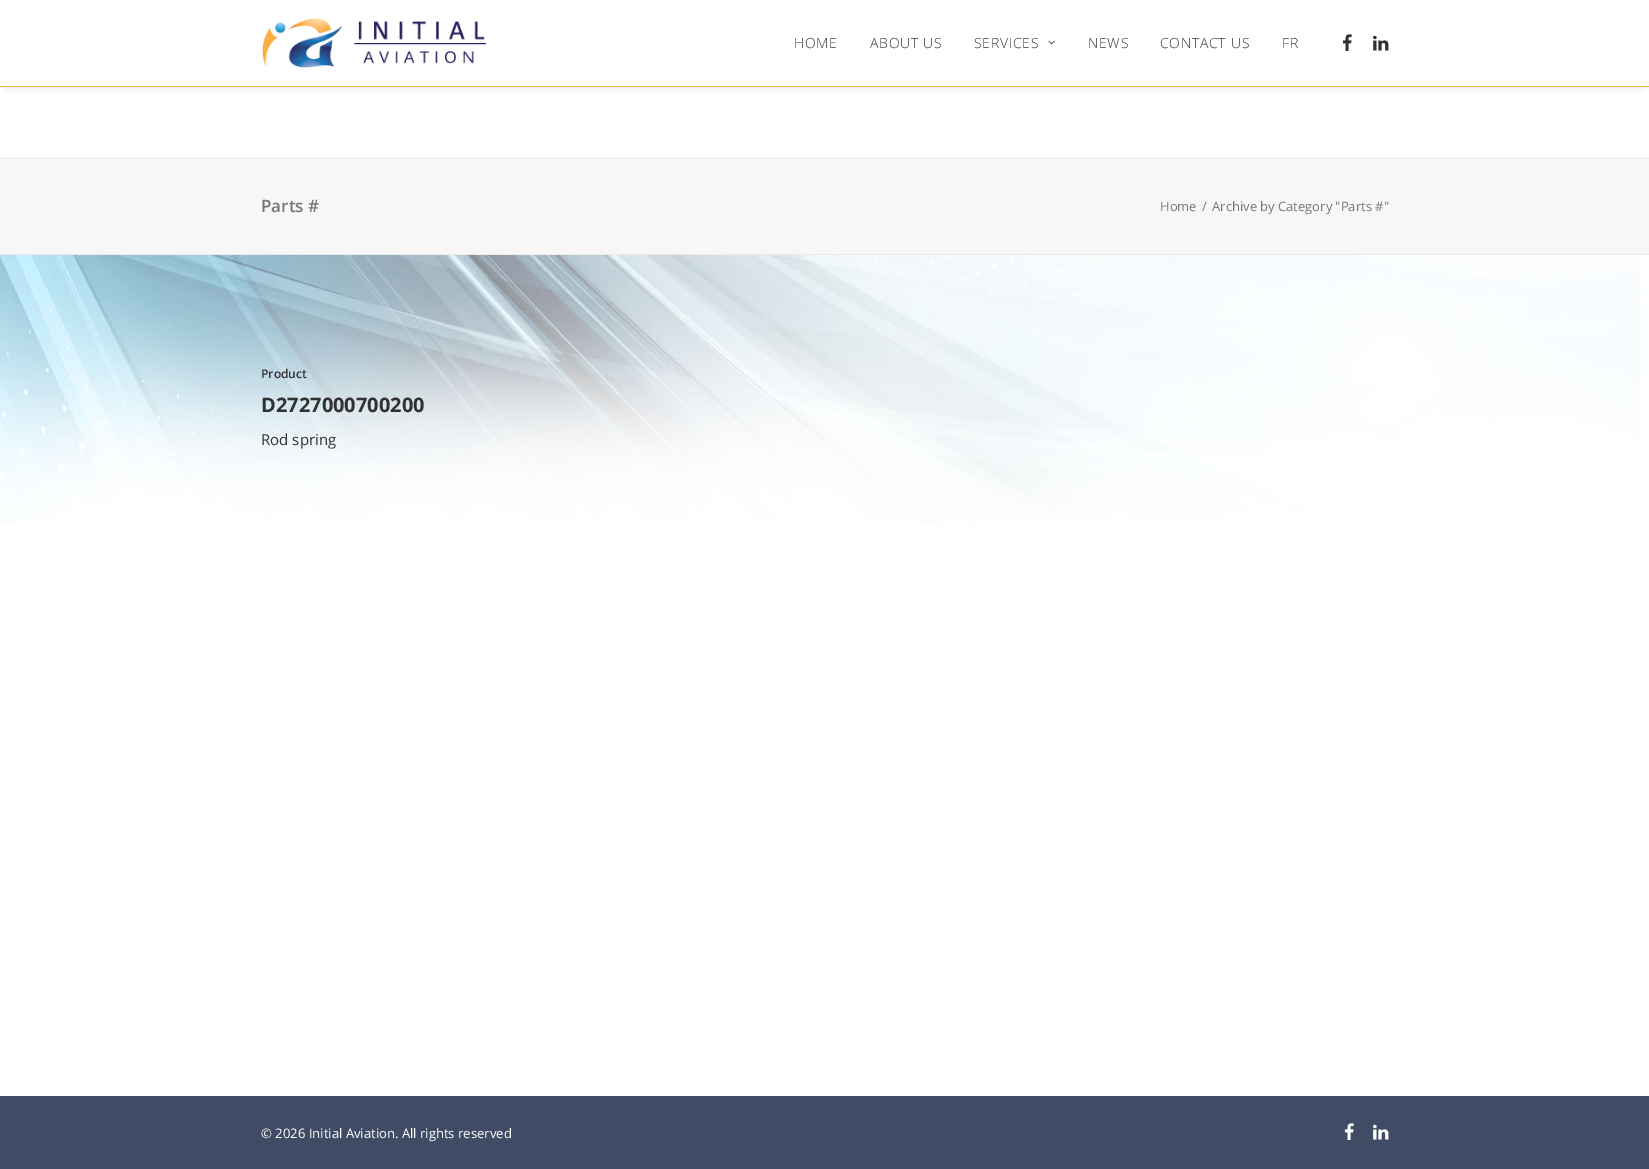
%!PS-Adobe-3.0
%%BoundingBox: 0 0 1649 1169
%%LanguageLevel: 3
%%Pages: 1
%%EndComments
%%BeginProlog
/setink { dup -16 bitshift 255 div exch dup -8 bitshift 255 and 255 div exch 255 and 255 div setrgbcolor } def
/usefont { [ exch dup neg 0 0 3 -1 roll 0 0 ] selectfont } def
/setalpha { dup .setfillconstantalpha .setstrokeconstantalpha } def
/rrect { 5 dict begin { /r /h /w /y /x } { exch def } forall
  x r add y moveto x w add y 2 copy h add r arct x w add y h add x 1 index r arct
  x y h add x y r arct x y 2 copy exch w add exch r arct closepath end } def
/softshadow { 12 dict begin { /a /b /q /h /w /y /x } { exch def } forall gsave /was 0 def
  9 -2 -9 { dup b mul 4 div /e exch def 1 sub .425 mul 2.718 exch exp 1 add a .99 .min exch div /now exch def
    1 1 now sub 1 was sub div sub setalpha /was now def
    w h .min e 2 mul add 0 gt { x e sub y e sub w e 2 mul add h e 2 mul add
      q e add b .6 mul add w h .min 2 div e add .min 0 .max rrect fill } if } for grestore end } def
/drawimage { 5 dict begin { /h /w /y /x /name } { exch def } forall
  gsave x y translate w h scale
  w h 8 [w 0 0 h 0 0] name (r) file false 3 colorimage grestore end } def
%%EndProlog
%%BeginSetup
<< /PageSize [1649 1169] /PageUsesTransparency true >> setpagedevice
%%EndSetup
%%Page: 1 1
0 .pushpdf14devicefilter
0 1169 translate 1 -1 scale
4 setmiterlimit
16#F7F7F7 setink
0 0 1649 1169 rectfill
16#FFFFFF setink
0 87 1649 71 rectfill
16#000000 setink
7 14 1636 67 0 5 0.6 softshadow
16#FFFFFF setink
0 0 1649 86 rectfill
16#F4B342 setink
0 86 1649 1 rectfill
(img1.raw) 262 18 224 50 drawimage
/OpenSans-Light 14 usefont
16#303133 setink
794 48 moveto 0.75 0 (HOME) ashow
870 48 moveto 0.75 0 (ABOUT US) ashow
974 48 moveto 0.75 0 (SERVICES) ashow
(img2.raw) 1048 40 7 5 drawimage
1088 48 moveto 0.75 0 (NEWS) ashow
1160 48 moveto 0.75 0 (CONTACT US) ashow
1282 48 moveto 0.75 0 (FR) ashow
(img3.raw) 1342 34 10 17 drawimage
(img4.raw) 1373 35 16 16 drawimage
16#EAEAEA setink
0 158 1649 1 rectfill
0 254 1649 1 rectfill
/OpenSans-SemiBold 17 usefont
16#767678 setink
261 212 moveto (Parts #) show
/OpenSans-Regular 13 usefont
[
    [(Home) 1160 211]
    [(/) 1202 211]
    [(Archive by Category "Parts #") 1212 211]
] { aload pop moveto show } forall
16#FFFFFF setink
0 255 1649 841 rectfill
(img5.raw) 0 255 1640 269 drawimage
/OpenSans-SemiBold 12 usefont
16#303133 setink
261 378 moveto (Product) show
/OpenSans-Bold 20 usefont
261 412 moveto (D2727000700200) show
/OpenSans-Regular 15 usefont
261 445 moveto (Rod spring) show
16#404C66 setink
0 1096 1649 73 rectfill
/OpenSans-Regular 13.1 usefont
16#FFFFFF setink
261 1138 moveto (© 2026 Initial Aviation. All rights reserved) show
(img6.raw) 1344 1123 10 17 drawimage
(img7.raw) 1373 1124 16 16 drawimage
.poppdf14devicefilter showpage
%%EOF
